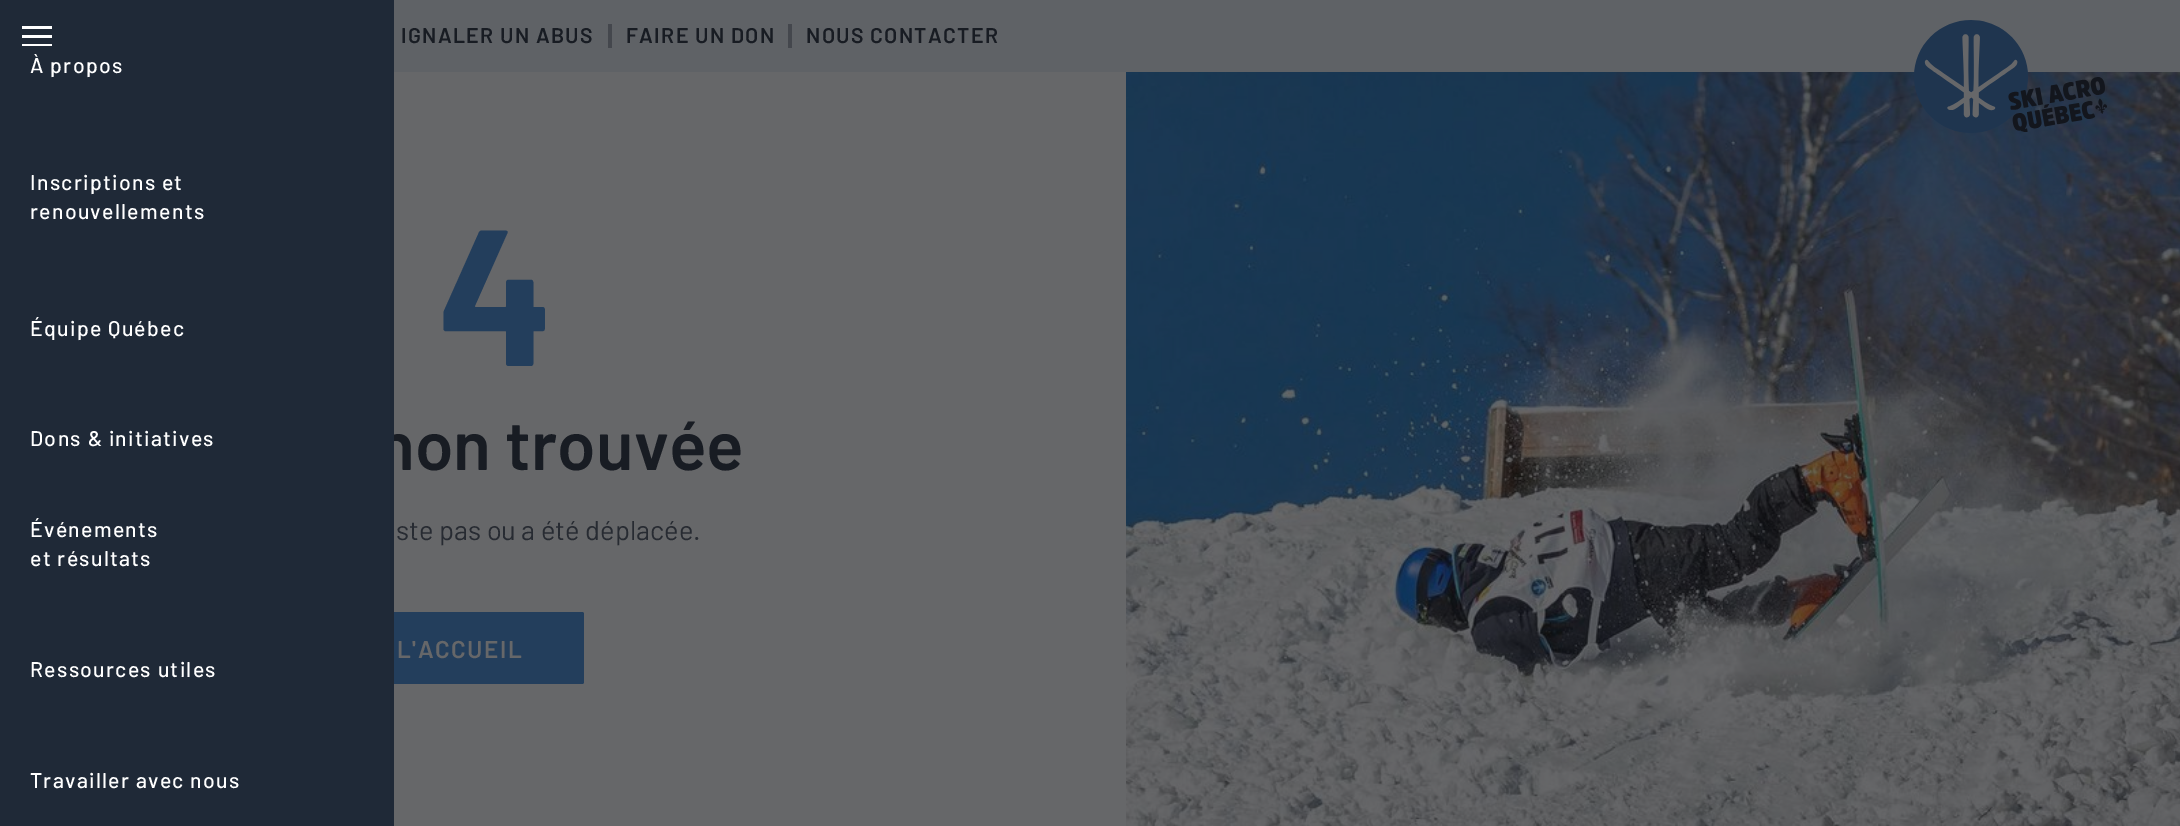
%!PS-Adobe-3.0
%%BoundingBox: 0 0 2180 826
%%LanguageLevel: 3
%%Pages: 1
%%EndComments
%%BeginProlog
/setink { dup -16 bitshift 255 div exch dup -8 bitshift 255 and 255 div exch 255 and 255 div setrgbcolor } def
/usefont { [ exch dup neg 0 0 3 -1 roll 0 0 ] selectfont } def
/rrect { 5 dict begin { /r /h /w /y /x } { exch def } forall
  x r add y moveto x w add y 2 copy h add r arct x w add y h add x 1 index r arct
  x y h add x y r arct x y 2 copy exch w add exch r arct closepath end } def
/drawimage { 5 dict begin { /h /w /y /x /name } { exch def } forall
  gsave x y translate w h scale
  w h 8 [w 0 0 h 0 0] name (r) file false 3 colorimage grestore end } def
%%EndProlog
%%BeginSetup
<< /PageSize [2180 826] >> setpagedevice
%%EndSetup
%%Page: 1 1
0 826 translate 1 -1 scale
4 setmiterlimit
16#666769 setink
0 0 2180 826 rectfill
16#5F6266 setink
394 0 1786 72 rectfill
/Barlow-SemiBold 21.25 usefont
16#181C23 setink
401 43 moveto 1.3 0 (IGNALER UN ABUS) ashow
16#44474D setink
608 24 4 24 rectfill
16#181C23 setink
626 43 moveto 1.3 0 (FAIRE UN DON) ashow
16#44474D setink
788 24 4 24 rectfill
16#181C23 setink
806 43 moveto 1.3 0 (NOUS CONTACTER) ashow
(img2.raw) 1126 72 1054 754 drawimage
(img1.raw) 1914 20 193 113 drawimage
/Barlow-SemiBold 69.5 usefont
377 470 moveto (non trouvée) show
16#233E5C setink
208 612 376 72 2 rrect fill
[
    [0 0 394 826 16#1F2937]
    [22 26 30 3 16#FFFFFF]
    [22 35 30 3 16#FFFFFF]
    [22 44 30 2 16#FFFFFF]
] { aload pop setink rectfill } forall
/Barlow-Medium 21.25 usefont
30 73 moveto 1.3 0 (À propos) ashow
30 190 moveto 1.3 0 (Inscriptions et) ashow
30 219 moveto 1.3 0 (renouvellements) ashow
30 336 moveto 1.3 0 (Équipe Québec) ashow
30 446 moveto 1.3 0 (Dons & initiatives) ashow
30 537 moveto 1.3 0 (Événements) ashow
30 566 moveto 1.3 0 (et résultats) ashow
30 677 moveto 1.3 0 (Ressources utiles) ashow
30 788 moveto 1.3 0 (Travailler avec nous) ashow
/Barlow-Bold 194 usefont
16#233E5C setink
437 366 moveto (4) show
/Barlow-Regular 27.25 usefont
16#272B32 setink
396 540 moveto (ste pas ou a été déplacée.) show
/Barlow-SemiBold 24.25 usefont
16#666769 setink
397 658 moveto 1.5 0 (L'ACCUEIL) ashow
showpage
%%EOF
